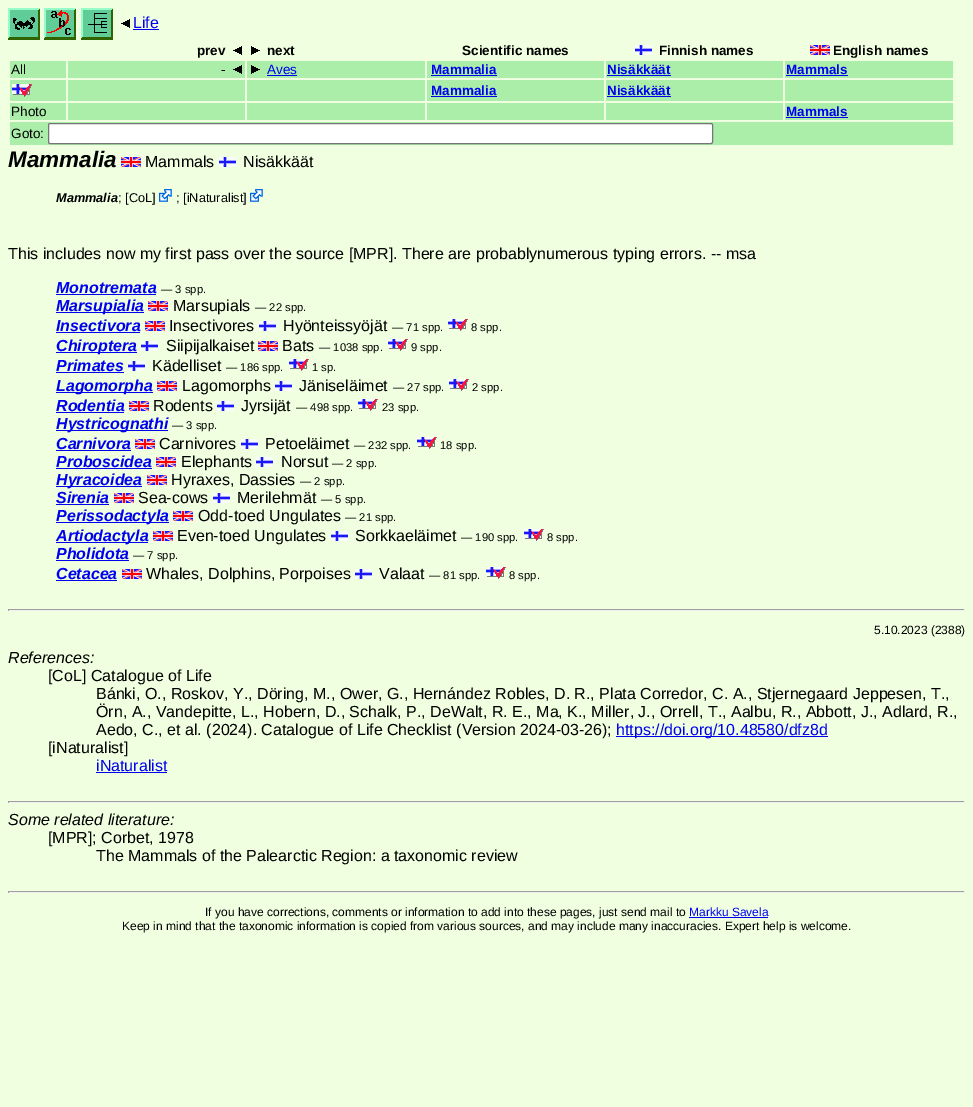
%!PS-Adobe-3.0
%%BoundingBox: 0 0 973 1107
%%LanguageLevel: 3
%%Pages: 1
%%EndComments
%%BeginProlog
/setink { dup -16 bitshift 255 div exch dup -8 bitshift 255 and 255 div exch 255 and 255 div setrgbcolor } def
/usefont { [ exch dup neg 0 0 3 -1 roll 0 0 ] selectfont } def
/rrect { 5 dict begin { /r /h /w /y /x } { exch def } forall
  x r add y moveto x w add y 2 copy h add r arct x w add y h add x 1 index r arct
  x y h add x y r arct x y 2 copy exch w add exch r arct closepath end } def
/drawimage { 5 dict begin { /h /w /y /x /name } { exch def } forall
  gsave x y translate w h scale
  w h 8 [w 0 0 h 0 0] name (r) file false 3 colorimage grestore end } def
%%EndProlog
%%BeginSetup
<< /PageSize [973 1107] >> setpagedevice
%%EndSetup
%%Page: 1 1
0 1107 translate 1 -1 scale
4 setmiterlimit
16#F0FFE0 setink
0 0 973 1107 rectfill
(img1.raw) 8 8 32 32 drawimage
(img2.raw) 44 8 32 32 drawimage
(img3.raw) 81 8 32 32 drawimage
(img4.raw) 121 19 9 9 drawimage
/LiberationSans-Regular 16 usefont
16#0000EE setink
133 28 moveto (Life) show
133 29 26 1 rectfill
/LiberationSans-Bold 13.5 usefont
16#000000 setink
197 55 moveto (prev) show
(img4.raw) 233 46 9 9 drawimage
(img5.raw) 251 46 9 9 drawimage
267 55 moveto (next) show
462 55 moveto (Scientific names) show
(img6.raw) 635 45 17 10 drawimage
659 55 moveto (Finnish names) show
(img7.raw) 810 45 20 10 drawimage
833 55 moveto (English names) show
16#AAEEAA setink
10 61 56 17 rectfill
/LiberationSans-Regular 13.5 usefont
16#000000 setink
11 74 moveto (All) show
16#AAEEAA setink
68 61 177 17 rectfill
16#000000 setink
221 74 moveto (-) show
(img8.raw) 233 65 9 9 drawimage
16#AAEEAA setink
247 61 178 17 rectfill
(img9.raw) 251 65 9 9 drawimage
16#0000EE setink
267 74 moveto (Aves) show
267 75 30 1 rectfill
16#AAEEAA setink
427 61 177 17 rectfill
/LiberationSans-Bold 13.5 usefont
16#0000EE setink
431 74 moveto (Mammalia) show
431 75 66 1 rectfill
16#AAEEAA setink
606 61 177 17 rectfill
16#0000EE setink
607 74 moveto (Nisäkkäät) show
607 75 64 1 rectfill
16#AAEEAA setink
785 61 168 17 rectfill
16#0000EE setink
786 74 moveto (Mammals) show
786 75 62 1 rectfill
16#AAEEAA setink
10 80 56 21 rectfill
(img10.raw) 12 84 20 13 drawimage
[
    [68 80 177 21 16#AAEEAA]
    [247 80 178 21 16#AAEEAA]
    [427 80 177 21 16#AAEEAA]
] { aload pop setink rectfill } forall
16#0000EE setink
431 95 moveto (Mammalia) show
431 96 66 1 rectfill
16#AAEEAA setink
606 80 177 21 rectfill
16#0000EE setink
607 95 moveto (Nisäkkäät) show
[
    [607 96 64 1 16#0000EE]
    [785 80 168 21 16#AAEEAA]
    [10 103 56 17 16#AAEEAA]
] { aload pop setink rectfill } forall
/LiberationSans-Regular 13.5 usefont
16#000000 setink
11 116 moveto (Photo) show
[
    [68 103 177 17 16#AAEEAA]
    [247 103 178 17 16#AAEEAA]
    [427 103 177 17 16#AAEEAA]
    [606 103 177 17 16#AAEEAA]
    [785 103 168 17 16#AAEEAA]
] { aload pop setink rectfill } forall
/LiberationSans-Bold 13.5 usefont
16#0000EE setink
786 116 moveto (Mammals) show
786 117 62 1 rectfill
16#AAEEAA setink
10 122 943 23 rectfill
/LiberationSans-Regular 13.5 usefont
16#000000 setink
11 138 moveto (Goto:) show
16#FFFFFF setink
48.5 123.5 664 20 1.5 rrect gsave fill grestore
16#767676 setink
stroke
/LiberationSans-BoldItalic 22.5 usefont
16#000000 setink
8 167 moveto (Mammalia) show
(img7.raw) 121 157 20 10 drawimage
/LiberationSans-Regular 16 usefont
145 167 moveto (Mammals) show
(img6.raw) 219 157 17 10 drawimage
243 167 moveto (Nisäkkäät) show
/LiberationSans-BoldItalic 12.75 usefont
56 202 moveto (Mammalia) show
/LiberationSans-Regular 12.75 usefont
118 202 moveto (; [CoL]) show
(img11.raw) 159 189 13 13 drawimage
176 202 moveto (; [iNaturalist]) show
(img11.raw) 250 189 13 13 drawimage
/LiberationSans-Regular 16 usefont
8 259 moveto (This includes now my first pass over the source [MPR]. There are probablynumerous typing errors. -- msa) show
/LiberationSans-BoldItalic 16 usefont
16#0000EE setink
56 293 moveto (Monotremata) show
56 294 100 1 rectfill
/LiberationSans-Regular 11.25 usefont
16#000000 setink
161 293 moveto (— 3 spp.) show
16#0000EE setink
56 312 88 1 rectfill
/LiberationSans-BoldItalic 16 usefont
56 311 moveto (Marsupialia) show
(img7.raw) 148 301 20 10 drawimage
/LiberationSans-Regular 16 usefont
16#000000 setink
173 311 moveto (Marsupials) show
/LiberationSans-Regular 11.25 usefont
255 311 moveto (— 22 spp.) show
/LiberationSans-BoldItalic 16 usefont
16#0000EE setink
56 331 moveto (Insectivora) show
56 332 84 1 rectfill
(img7.raw) 145 321 20 10 drawimage
/LiberationSans-Regular 16 usefont
16#000000 setink
169 331 moveto (Insectivores) show
(img6.raw) 259 321 17 10 drawimage
283 331 moveto (Hyönteissyöjät) show
/LiberationSans-Regular 11.25 usefont
392 331 moveto (— 71 spp.) show
(img12.raw) 448 319 20 12 drawimage
471 331 moveto (8 spp.) show
16#0000EE setink
56 352 81 1 rectfill
/LiberationSans-BoldItalic 16 usefont
56 351 moveto (Chiroptera) show
(img6.raw) 141 341 17 10 drawimage
/LiberationSans-Regular 16 usefont
16#000000 setink
166 351 moveto (Siipijalkaiset) show
(img7.raw) 258 341 20 10 drawimage
282 351 moveto (Bats) show
/LiberationSans-Regular 11.25 usefont
319 351 moveto (— 1038 spp.) show
(img12.raw) 388 339 20 12 drawimage
411 351 moveto (9 spp.) show
/LiberationSans-BoldItalic 16 usefont
16#0000EE setink
56 371 moveto (Primates) show
56 372 68 1 rectfill
(img6.raw) 128 361 17 10 drawimage
/LiberationSans-Regular 16 usefont
16#000000 setink
152 371 moveto (Kädelliset) show
/LiberationSans-Regular 11.25 usefont
226 371 moveto (— 186 spp.) show
(img12.raw) 289 359 20 12 drawimage
312 371 moveto (1 sp.) show
16#0000EE setink
56 392 97 1 rectfill
/LiberationSans-BoldItalic 16 usefont
56 391 moveto (Lagomorpha) show
(img7.raw) 157 381 20 10 drawimage
/LiberationSans-Regular 16 usefont
16#000000 setink
182 391 moveto (Lagomorphs) show
(img6.raw) 275 381 17 10 drawimage
299 391 moveto (Jäniseläimet) show
/LiberationSans-Regular 11.25 usefont
393 391 moveto (— 27 spp.) show
(img12.raw) 449 379 20 12 drawimage
472 391 moveto (2 spp.) show
/LiberationSans-BoldItalic 16 usefont
16#0000EE setink
56 411 moveto (Rodentia) show
56 412 68 1 rectfill
(img7.raw) 129 401 20 10 drawimage
/LiberationSans-Regular 16 usefont
16#000000 setink
153 411 moveto (Rodents) show
(img6.raw) 217 401 17 10 drawimage
241 411 moveto (Jyrsijät) show
/LiberationSans-Regular 11.25 usefont
296 411 moveto (— 498 spp.) show
(img12.raw) 358 399 20 12 drawimage
382 411 moveto (23 spp.) show
16#0000EE setink
56 430 112 1 rectfill
/LiberationSans-BoldItalic 16 usefont
56 429 moveto (Hystricognathi) show
/LiberationSans-Regular 11.25 usefont
16#000000 setink
172 429 moveto (— 3 spp.) show
/LiberationSans-BoldItalic 16 usefont
16#0000EE setink
56 449 moveto (Carnivora) show
56 450 75 1 rectfill
(img7.raw) 135 439 20 10 drawimage
/LiberationSans-Regular 16 usefont
16#000000 setink
159 449 moveto (Carnivores) show
(img6.raw) 241 439 17 10 drawimage
265 449 moveto (Petoeläimet) show
/LiberationSans-Regular 11.25 usefont
354 449 moveto (— 232 spp.) show
(img12.raw) 417 437 20 12 drawimage
440 449 moveto (18 spp.) show
/LiberationSans-BoldItalic 16 usefont
16#0000EE setink
56 467 moveto (Proboscidea) show
56 468 96 1 rectfill
(img7.raw) 156 457 20 10 drawimage
/LiberationSans-Regular 16 usefont
16#000000 setink
181 467 moveto (Elephants) show
(img6.raw) 256 457 17 10 drawimage
281 467 moveto (Norsut) show
/LiberationSans-Regular 11.25 usefont
332 467 moveto (— 2 spp.) show
16#0000EE setink
56 486 86 1 rectfill
/LiberationSans-BoldItalic 16 usefont
56 485 moveto (Hyracoidea) show
(img7.raw) 147 475 20 10 drawimage
/LiberationSans-Regular 16 usefont
16#000000 setink
171 485 moveto (Hyraxes, Dassies) show
/LiberationSans-Regular 11.25 usefont
300 485 moveto (— 2 spp.) show
/LiberationSans-BoldItalic 16 usefont
16#0000EE setink
56 503 moveto (Sirenia) show
56 504 53 1 rectfill
(img7.raw) 114 493 20 10 drawimage
/LiberationSans-Regular 16 usefont
16#000000 setink
138 503 moveto (Sea-cows) show
(img6.raw) 213 493 17 10 drawimage
237 503 moveto (Merilehmät) show
/LiberationSans-Regular 11.25 usefont
321 503 moveto (— 5 spp.) show
16#0000EE setink
56 522 113 1 rectfill
/LiberationSans-BoldItalic 16 usefont
56 521 moveto (Perissodactyla) show
(img7.raw) 173 511 20 10 drawimage
/LiberationSans-Regular 16 usefont
16#000000 setink
198 521 moveto (Odd-toed Ungulates) show
/LiberationSans-Regular 11.25 usefont
345 521 moveto (— 21 spp.) show
16#0000EE setink
56 542 92 1 rectfill
/LiberationSans-BoldItalic 16 usefont
56 541 moveto (Artiodactyla) show
(img7.raw) 153 531 20 10 drawimage
/LiberationSans-Regular 16 usefont
16#000000 setink
177 541 moveto (Even-toed Ungulates) show
(img6.raw) 331 531 17 10 drawimage
355 541 moveto (Sorkkaeläimet) show
/LiberationSans-Regular 11.25 usefont
461 541 moveto (— 190 spp.) show
(img12.raw) 524 529 20 12 drawimage
547 541 moveto (8 spp.) show
/LiberationSans-BoldItalic 16 usefont
16#0000EE setink
56 559 moveto (Pholidota) show
56 560 73 1 rectfill
/LiberationSans-Regular 11.25 usefont
16#000000 setink
133 559 moveto (— 7 spp.) show
/LiberationSans-BoldItalic 16 usefont
16#0000EE setink
56 579 moveto (Cetacea) show
56 580 61 1 rectfill
(img7.raw) 122 569 20 10 drawimage
/LiberationSans-Regular 16 usefont
16#000000 setink
146 579 moveto (Whales, Dolphins, Porpoises) show
(img6.raw) 355 569 17 10 drawimage
379 579 moveto (Valaat) show
/LiberationSans-Regular 11.25 usefont
429 579 moveto (— 81 spp.) show
(img12.raw) 486 567 20 12 drawimage
509 579 moveto (8 spp.) show
[
    [8 609 957 1 16#9F9F9F]
    [964 609 1 2 16#EEEEEE]
    [8 610 957 1 16#EEEEEE]
    [8 609 1 2 16#9F9F9F]
] { aload pop setink rectfill } forall
/LiberationSans-Regular 12 usefont
16#000000 setink
874 634 moveto (5.10.2023 \(2388\)) show
/LiberationSans-Italic 16 usefont
8 663 moveto (References:) show
/LiberationSans-Regular 16 usefont
[
    [([CoL] Catalogue of Life) 48 681]
    [(Bánki, O., Roskov, Y., Döring, M., Ower, G., Hernández Robles, D. R., Plata Corredor, C. A., Stjernegaard Jeppesen, T.,) 96 699]
    [(Örn, A., Vandepitte, L., Hobern, D., Schalk, P., DeWalt, R. E., Ma, K., Miller, J., Orrell, T., Aalbu, R., Abbott, J., Adlard, R.,) 96 717]
    [(Aedo, C., et al. \(2024\). Catalogue of Life Checklist \(Version 2024-03-26\);) 96 735]
] { aload pop moveto show } forall
16#0000EE setink
616 736 212 1 rectfill
616 735 moveto (https://doi.org/10.48580/dfz8d) show
16#000000 setink
48 753 moveto ([iNaturalist]) show
16#0000EE setink
96 771 moveto (iNaturalist) show
[
    [96 772 71 1 16#0000EE]
    [8 801 957 1 16#9F9F9F]
    [964 801 1 2 16#EEEEEE]
    [8 802 957 1 16#EEEEEE]
    [8 801 1 2 16#9F9F9F]
] { aload pop setink rectfill } forall
/LiberationSans-Italic 16 usefont
16#000000 setink
8 825 moveto (Some related literature:) show
/LiberationSans-Regular 16 usefont
48 843 moveto ([MPR]; Corbet, 1978) show
96 861 moveto (The Mammals of the Palearctic Region: a taxonomic review) show
[
    [8 891 957 1 16#9F9F9F]
    [964 891 1 2 16#EEEEEE]
    [8 892 957 1 16#EEEEEE]
    [8 891 1 2 16#9F9F9F]
] { aload pop setink rectfill } forall
/LiberationSans-Regular 12 usefont
16#000000 setink
205 916 moveto (If you have corrections, comments or information to add into these pages, just send mail to) show
16#0000EE setink
689 916 moveto (Markku Savela) show
689 917 79 1 rectfill
16#000000 setink
122 930 moveto (Keep in mind that the taxonomic information is copied from various sources, and may include many inaccuracies. Expert help is welcome.) show
showpage
%%EOF
